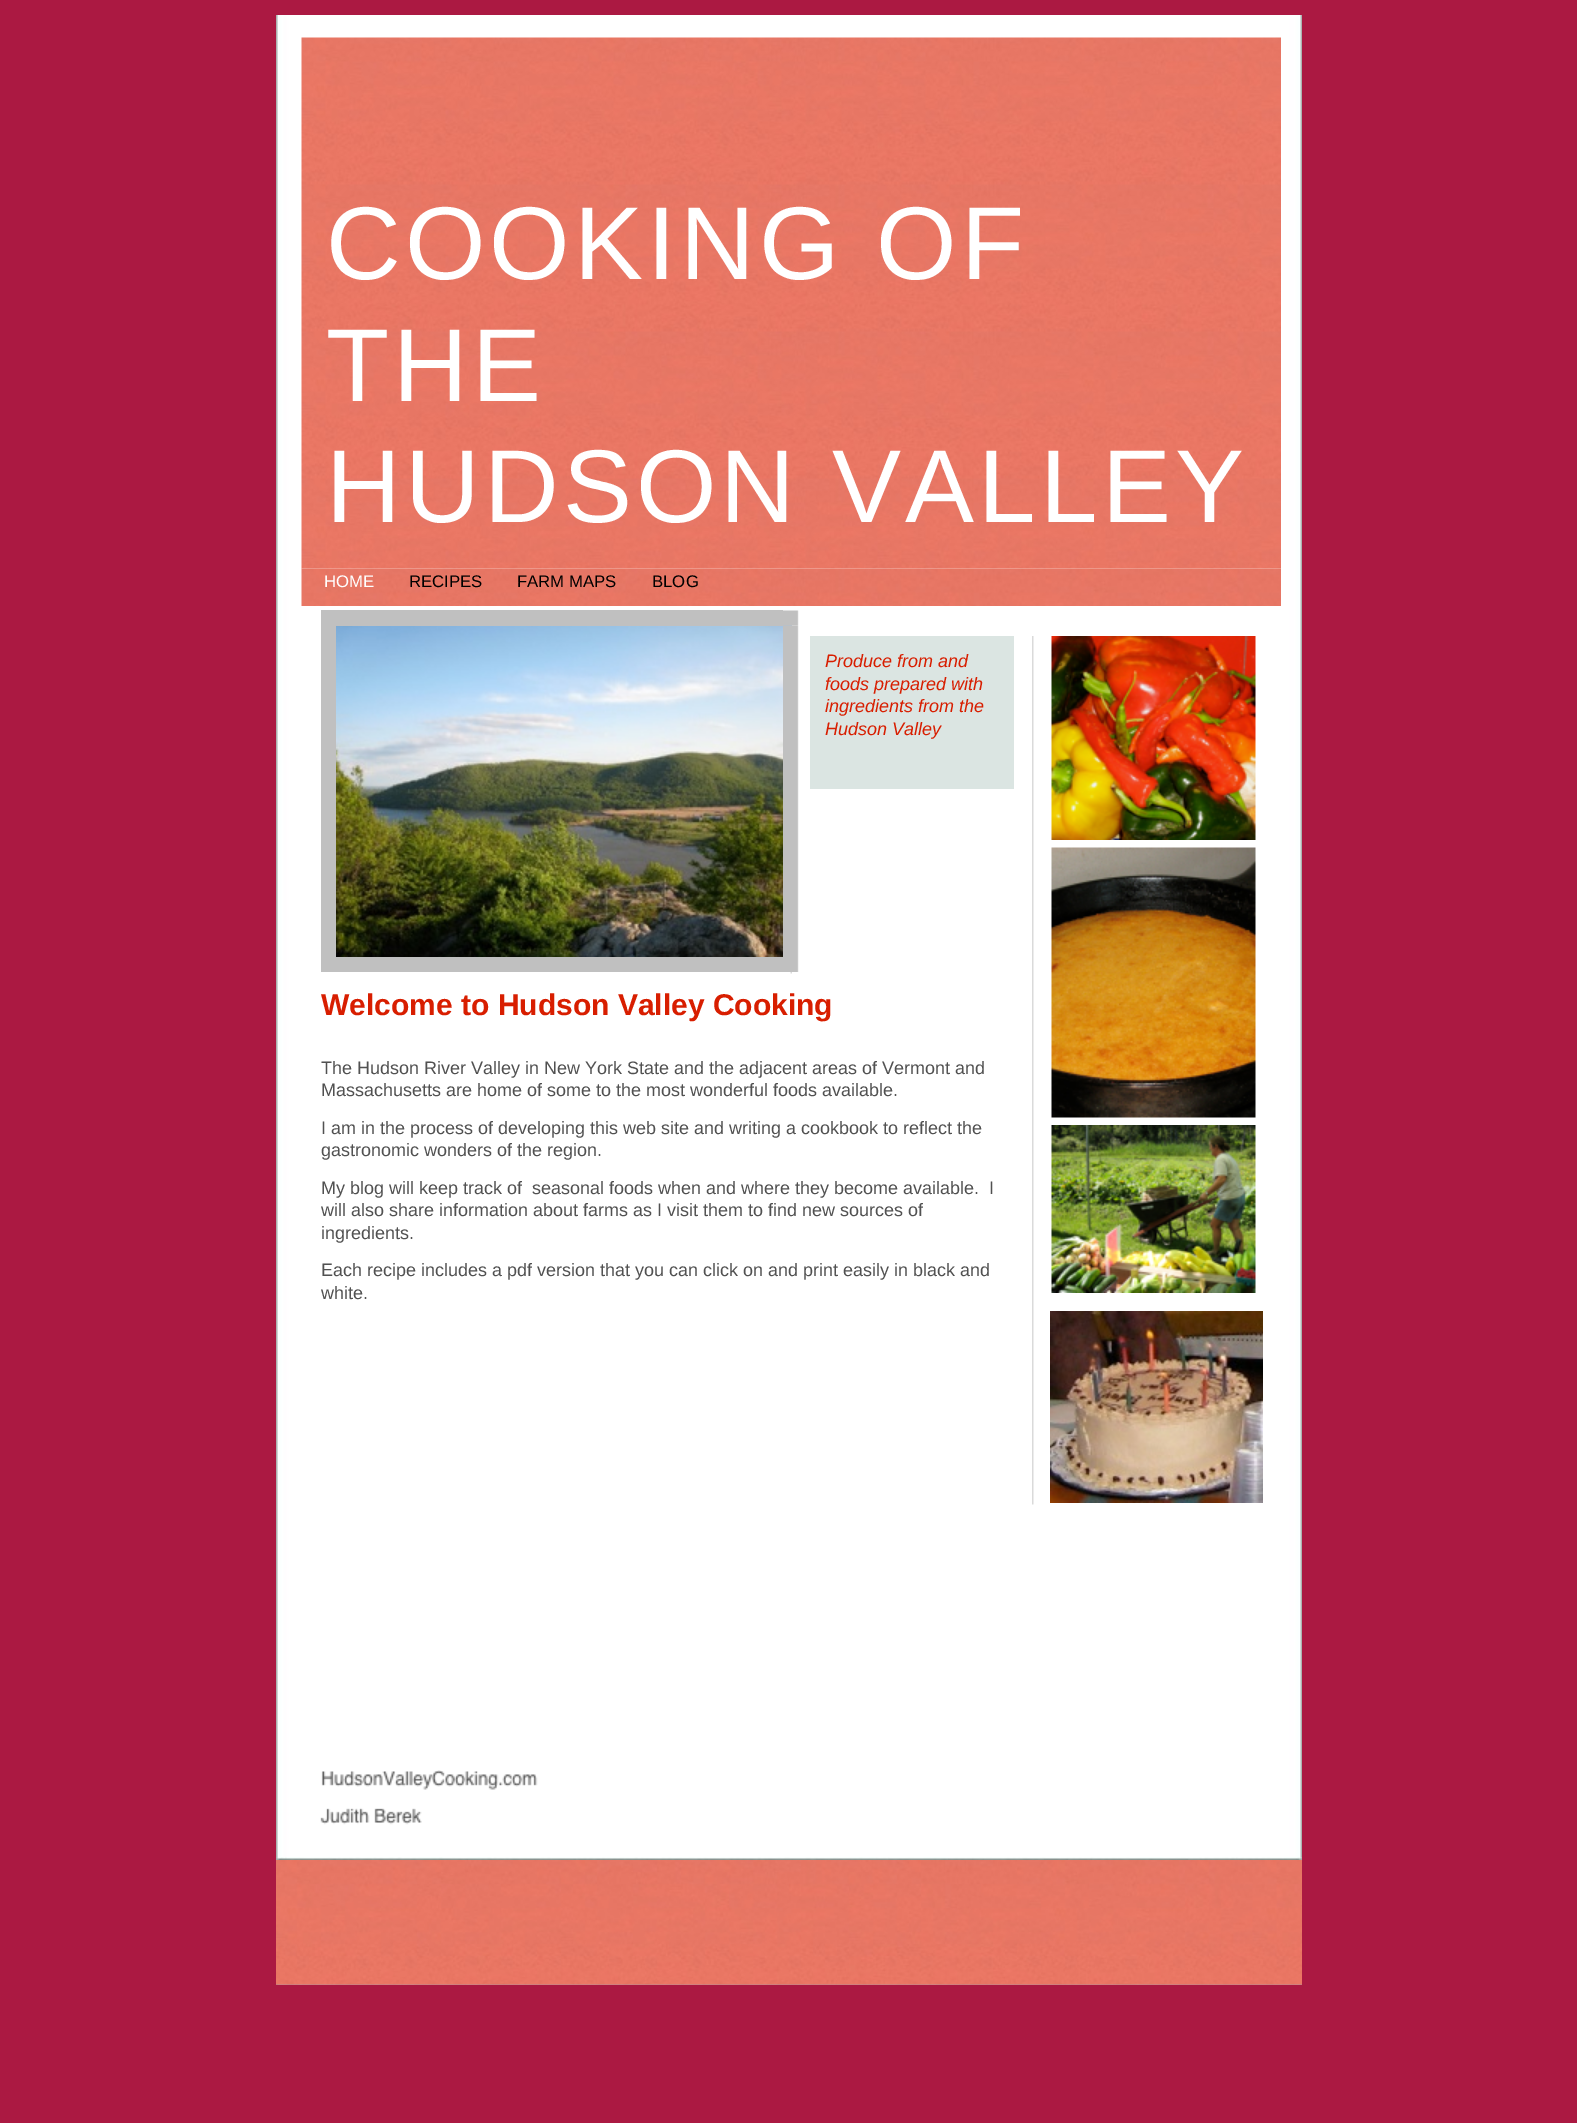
%!PS-Adobe-3.0
%%BoundingBox: 0 0 1577 2123
%%LanguageLevel: 3
%%Pages: 1
%%EndComments
%%BeginProlog
/setink { dup -16 bitshift 255 div exch dup -8 bitshift 255 and 255 div exch 255 and 255 div setrgbcolor } def
/usefont { [ exch dup neg 0 0 3 -1 roll 0 0 ] selectfont } def
/drawimage { 5 dict begin { /h /w /y /x /name } { exch def } forall
  gsave x y translate w h scale
  w h 8 [w 0 0 h 0 0] name (r) file false 3 colorimage grestore end } def
%%EndProlog
%%BeginSetup
<< /PageSize [1577 2123] >> setpagedevice
%%EndSetup
%%Page: 1 1
0 2123 translate 1 -1 scale
4 setmiterlimit
16#AB1942 setink
0 0 1577 2123 rectfill
(img1.raw) 276 15 1026 1970 drawimage
(img3.raw) 301 568 980 38 drawimage
(img2.raw) 301 37 980 532 drawimage
/LiberationSans-Regular 103.5 usefont
16#FFFFFF setink
326 279 moveto 4.1 0 (COOKING OF) ashow
326 401 moveto 4.1 0 (THE) ashow
326 522 moveto 4.1 0 (HUDSON VALLEY) ashow
/LiberationSans-Regular 16.75 usefont
324 587 moveto (HOME) show
16#000000 setink
[
    [(RECIPES) 409 587]
    [(FARM MAPS) 517 587]
    [(BLOG) 652 587]
] { aload pop moveto show } forall
16#C0C0C0 setink
321 610 15 347 rectfill
(img5.raw) 336 625 456 332 drawimage
336 610 447 16 rectfill
(img4.raw) 783 610 16 16 drawimage
(img6.raw) 783 625 16 332 drawimage
321 957 462 15 rectfill
(img7.raw) 783 957 16 15 drawimage
16#DBE5E2 setink
810 636 204 153 rectfill
/LiberationSans-Italic 18 usefont
16#D81E00 setink
[
    [(Produce from and) 825 667]
    [(foods prepared with) 825 690]
    [(ingredients from the) 825 712]
    [(Hudson Valley) 825 735]
] { aload pop moveto show } forall
(img8.raw) 1032 636 2 869 drawimage
(img9.raw) 1051 636 205 204 drawimage
(img10.raw) 790 972 2 2 drawimage
(img11.raw) 1051 847 205 271 drawimage
/LiberationSans-Bold 30 usefont
321 1015 moveto (Welcome to Hudson Valley Cooking) show
/LiberationSans-Regular 18 usefont
16#515151 setink
[
    [(The Hudson River Valley in New York State and the adjacent areas of Vermont and) 321 1074]
    [(Massachusetts are home of some to the most wonderful foods available.) 321 1096]
    [(I am in the process of developing this web site and writing a cookbook to reflect the) 321 1134]
    [(gastronomic wonders of the region.) 321 1156]
    [(My blog will keep track of  seasonal foods when and where they become available.  I) 321 1194]
    [(will also share information about farms as I visit them to find new sources of) 321 1216]
    [(ingredients.) 321 1239]
    [(Each recipe includes a pdf version that you can click on and print easily in black and) 321 1276]
    [(white.) 321 1299]
] { aload pop moveto show } forall
(img12.raw) 1051 1125 205 168 drawimage
(img13.raw) 1050 1311 213 192 drawimage
(img14.raw) 320 1770 218 55 drawimage
(img15.raw) 276 1857 1026 128 drawimage
(img16.raw) 276 1860 1026 125 drawimage
showpage
%%EOF
